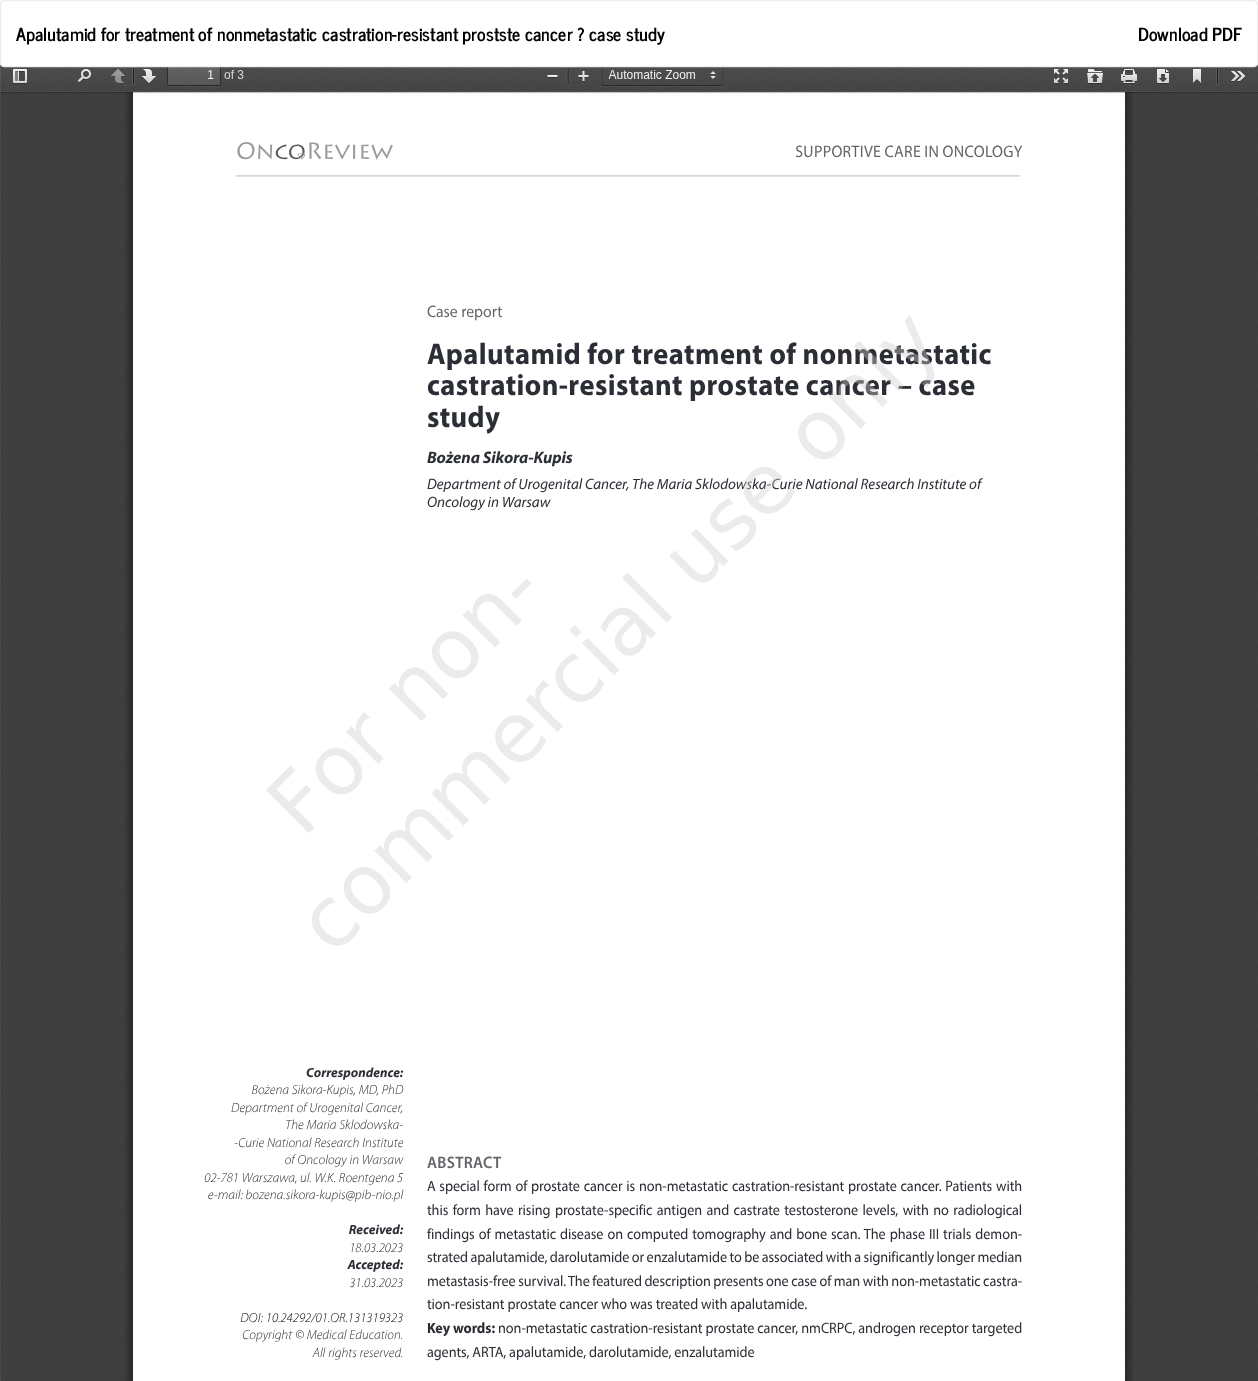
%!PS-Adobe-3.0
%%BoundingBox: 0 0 1258 1381
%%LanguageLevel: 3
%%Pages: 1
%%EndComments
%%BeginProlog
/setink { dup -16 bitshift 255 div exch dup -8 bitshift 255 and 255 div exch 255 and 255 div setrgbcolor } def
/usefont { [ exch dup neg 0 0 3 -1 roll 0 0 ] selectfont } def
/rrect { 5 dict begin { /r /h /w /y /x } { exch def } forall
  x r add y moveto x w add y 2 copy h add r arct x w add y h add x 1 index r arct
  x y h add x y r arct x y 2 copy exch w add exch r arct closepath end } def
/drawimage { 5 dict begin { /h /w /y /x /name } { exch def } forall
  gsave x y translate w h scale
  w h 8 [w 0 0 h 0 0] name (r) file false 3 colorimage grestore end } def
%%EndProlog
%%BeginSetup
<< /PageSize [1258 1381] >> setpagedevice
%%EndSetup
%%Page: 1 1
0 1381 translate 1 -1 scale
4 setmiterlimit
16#FFFFFF setink
0 0 1258 1381 rectfill
(img1.raw) 0 63 1258 1318 drawimage
0.5 0.5 1257 66 3.5 rrect gsave fill grestore
16#EEEEEE setink
stroke
/NewsCycle-Bold 18 usefont
16#000000 setink
16 41 moveto (Apalutamid for treatment of nonmetastatic castration-resistant prostste cancer ? case study) show
1138 41 moveto (Download PDF) show
showpage
%%EOF
